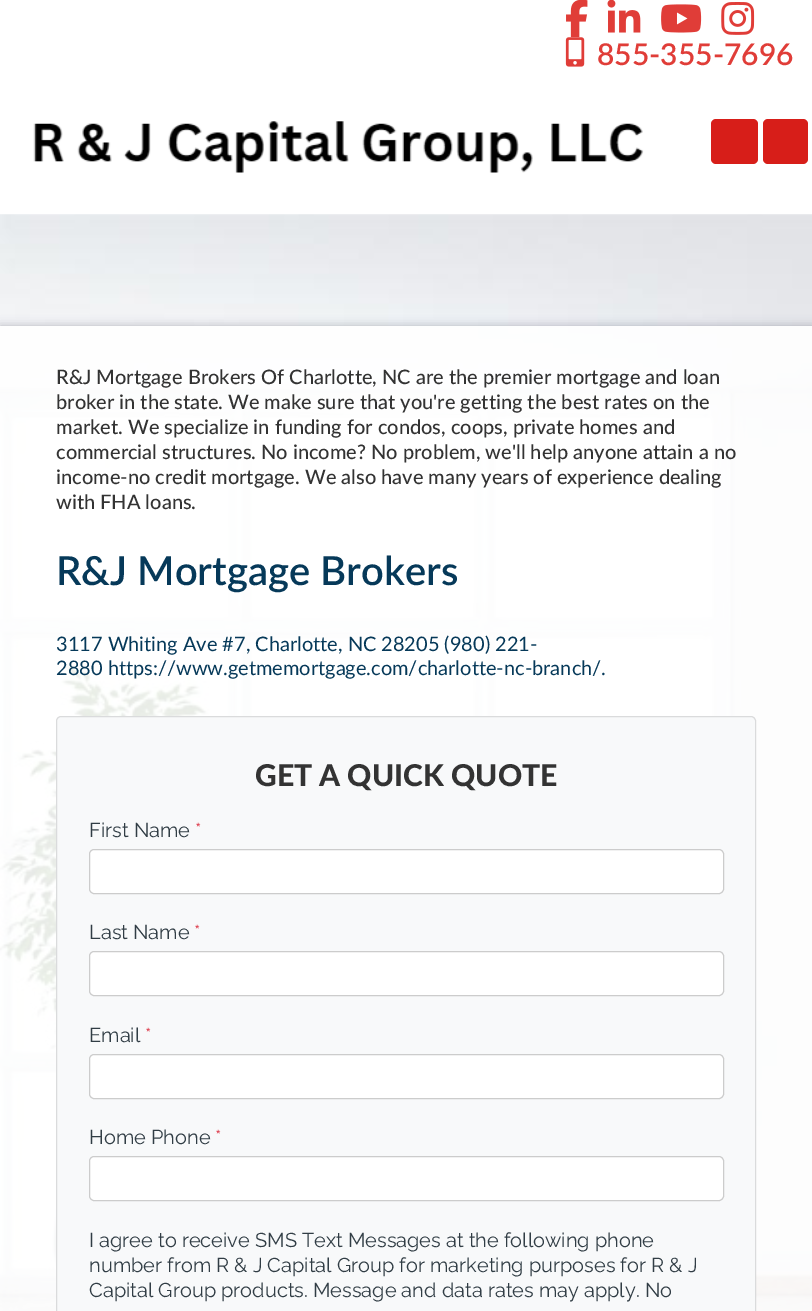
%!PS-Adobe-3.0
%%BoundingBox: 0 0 812 1311
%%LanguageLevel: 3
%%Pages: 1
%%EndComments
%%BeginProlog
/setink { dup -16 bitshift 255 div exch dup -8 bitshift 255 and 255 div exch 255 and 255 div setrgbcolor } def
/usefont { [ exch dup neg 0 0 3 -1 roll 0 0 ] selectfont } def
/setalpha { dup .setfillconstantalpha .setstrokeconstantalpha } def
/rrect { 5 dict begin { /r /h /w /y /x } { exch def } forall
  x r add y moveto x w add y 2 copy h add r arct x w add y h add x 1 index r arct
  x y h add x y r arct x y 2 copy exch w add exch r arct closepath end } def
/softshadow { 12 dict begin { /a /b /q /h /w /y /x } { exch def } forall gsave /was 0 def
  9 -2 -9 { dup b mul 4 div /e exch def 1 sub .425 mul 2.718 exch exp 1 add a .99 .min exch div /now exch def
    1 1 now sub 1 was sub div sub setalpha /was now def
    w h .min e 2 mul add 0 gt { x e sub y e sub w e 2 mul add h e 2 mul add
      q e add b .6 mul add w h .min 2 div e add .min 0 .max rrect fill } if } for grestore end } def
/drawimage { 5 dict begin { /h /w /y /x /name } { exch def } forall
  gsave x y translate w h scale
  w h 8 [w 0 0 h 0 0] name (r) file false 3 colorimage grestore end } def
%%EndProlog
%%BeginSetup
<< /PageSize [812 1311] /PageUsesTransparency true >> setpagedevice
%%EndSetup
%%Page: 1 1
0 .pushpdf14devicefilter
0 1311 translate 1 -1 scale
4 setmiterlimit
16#FFFFFF setink
0 0 812 1311 rectfill
(img1.raw) 566 0 22 38 drawimage
(img2.raw) 607 0 34 33 drawimage
(img3.raw) 661 4 41 29 drawimage
(img4.raw) 721 2 34 33 drawimage
(img5.raw) 565 37 20 30 drawimage
/Lato-SemiBold 30 usefont
16#E03D38 setink
597 65 moveto (855-355-7696) show
(img6.raw) 33 121 611 52 drawimage
16#D71E19 setink
711 119 47 45 5 rrect fill
763 119 45 45 5 rrect fill
(img7.raw) 0 214 812 1097 drawimage
gsave
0 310 moveto 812 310 lineto 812 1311 lineto 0 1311 lineto closepath 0 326 moveto 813 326 lineto 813 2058 lineto 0 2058 lineto closepath eoclip newpath
16#232638 setink
0 326 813 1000 0 5 0.3 softshadow
grestore
0.9 setalpha
16#FFFFFF setink
0 326 812 985 rectfill
/Lato-Medium 20 usefont
1 setalpha
16#333333 setink
[
    [(R&J Mortgage Brokers Of Charlotte, NC are the premier mortgage and loan) 56 384]
    [(broker in the state. We make sure that you're getting the best rates on the) 56 409]
    [(market. We specialize in funding for condos, coops, private homes and) 56 434]
    [(commercial structures. No income? No problem, we'll help anyone attain a no) 56 459]
    [(income-no credit mortgage. We also have many years of experience dealing) 56 484]
    [(with FHA loans.) 56 509]
] { aload pop moveto show } forall
/Lato-SemiBold 40 usefont
16#063959 setink
56 585 moveto (R&J Mortgage Brokers) show
/Lato-Regular 20 usefont
56 651 moveto (3117 Whiting Ave #7, Charlotte, NC 28205 \(980\) 221-) show
56 675 moveto (2880 https://www.getmemortgage.com/charlotte-nc-branch/.) show
16#F8F9FA setink
56 716 700 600 5 rrect fill
0.12 setalpha
16#000000 setink
56.5 716.5 699 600 4.5 rrect stroke
/Lato-Black 30 usefont
1 setalpha
16#333333 setink
255 786 moveto (GET A QUICK QUOTE) show
/Raleway-Regular 20 usefont
16#313D45 setink
89 837 moveto (First Name) show
16#DC3545 setink
195 837 moveto (*) show
16#FFFFFF setink
89.5 849.5 634 44 4.5 rrect gsave fill grestore
16#CCCCCC setink
stroke
16#313D45 setink
89 939 moveto (Last Name) show
16#DC3545 setink
194 939 moveto (*) show
16#FFFFFF setink
89.5 951.5 634 44 4.5 rrect gsave fill grestore
16#CCCCCC setink
stroke
16#313D45 setink
89 1042 moveto (Email) show
16#DC3545 setink
145 1042 moveto (*) show
16#FFFFFF setink
89.5 1054.5 634 44 4.5 rrect gsave fill grestore
16#CCCCCC setink
stroke
16#313D45 setink
89 1144 moveto (Home Phone) show
16#DC3545 setink
215 1144 moveto (*) show
16#FFFFFF setink
89.5 1156.5 634 44 4.5 rrect gsave fill grestore
16#CCCCCC setink
stroke
16#313D45 setink
[
    [(I agree to receive SMS Text Messages at the following phone) 89 1247]
    [(number from R & J Capital Group for marketing purposes for R & J) 89 1272]
    [(Capital Group products. Message and data rates may apply. No) 89 1297]
] { aload pop moveto show } forall
.poppdf14devicefilter showpage
%%EOF
